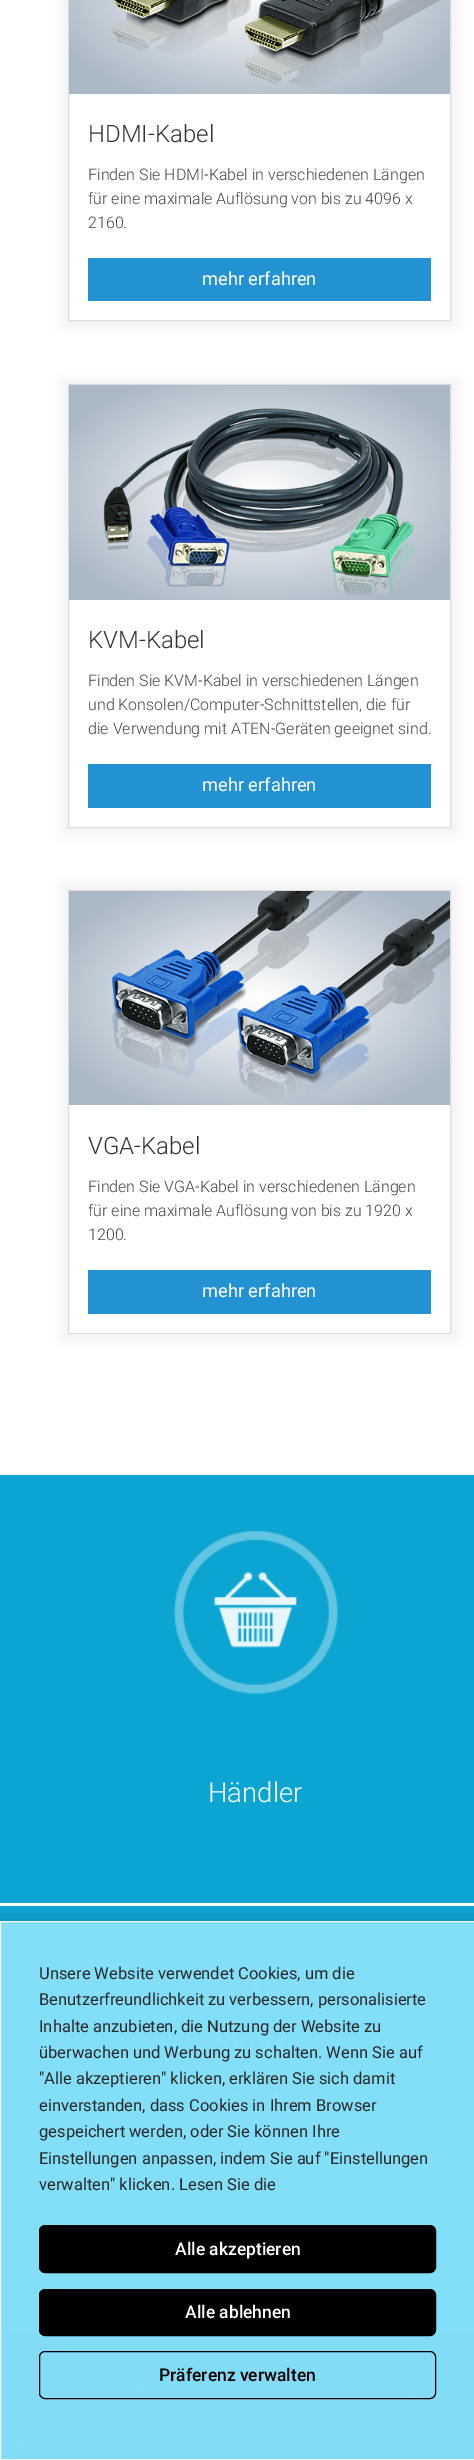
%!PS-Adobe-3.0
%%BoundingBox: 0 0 474 2460
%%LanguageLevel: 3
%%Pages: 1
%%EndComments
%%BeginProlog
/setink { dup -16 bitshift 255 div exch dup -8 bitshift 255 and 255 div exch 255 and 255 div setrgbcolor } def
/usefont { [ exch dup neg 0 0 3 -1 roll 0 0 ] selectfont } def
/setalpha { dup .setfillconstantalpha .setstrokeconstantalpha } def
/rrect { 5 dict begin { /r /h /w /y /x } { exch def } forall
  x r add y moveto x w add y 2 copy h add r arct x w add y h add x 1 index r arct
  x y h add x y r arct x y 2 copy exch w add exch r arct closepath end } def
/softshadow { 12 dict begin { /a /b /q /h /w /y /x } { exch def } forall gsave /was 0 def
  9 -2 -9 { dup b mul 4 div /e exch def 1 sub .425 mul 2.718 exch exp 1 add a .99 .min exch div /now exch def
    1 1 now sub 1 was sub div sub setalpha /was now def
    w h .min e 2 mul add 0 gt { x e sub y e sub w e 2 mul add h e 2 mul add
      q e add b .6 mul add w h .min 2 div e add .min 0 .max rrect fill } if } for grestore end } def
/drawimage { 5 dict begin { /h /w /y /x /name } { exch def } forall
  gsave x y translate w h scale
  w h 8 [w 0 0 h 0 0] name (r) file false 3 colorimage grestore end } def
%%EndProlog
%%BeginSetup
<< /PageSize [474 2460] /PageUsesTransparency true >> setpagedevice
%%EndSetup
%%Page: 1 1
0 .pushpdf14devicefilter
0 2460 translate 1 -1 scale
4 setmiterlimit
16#FFFFFF setink
0 0 474 2460 rectfill
gsave
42 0 moveto 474 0 lineto 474 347 lineto 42 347 lineto closepath 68 -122 moveto 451 -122 lineto 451 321 lineto 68 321 lineto closepath eoclip newpath
16#EEEEEE setink
61 -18 397 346 0 6 0.75 softshadow
grestore
16#DDDDDD setink
68.5 -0.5 382 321 rectstroke
gsave 69 0 moveto 450 0 lineto 450 94 lineto 69 94 lineto closepath clip newpath 259 -14 translate 270 152 scale
<< /ShadingType 3 /ColorSpace /DeviceRGB /Coords [0 0 0 0 0 1] /Extend [true true] /Function << /FunctionType 3 /Domain [0 1] /Functions [<< /FunctionType 2 /Domain [0 1] /C0 [1 1 1] /C1 [0.671 0.722 0.776] /N 1 >> << /FunctionType 2 /Domain [0 1] /C0 [0.671 0.722 0.776] /C1 [0.671 0.722 0.776] /N 1 >>] /Bounds [0.84] /Encode [0 1 0 1] >> >> shfill grestore
(img1.raw) 111 0 329 89 drawimage
/Roboto-Light 24 usefont
16#333333 setink
88 142 moveto (HDMI-Kabel) show
/Roboto-Light 15.95 usefont
16#444444 setink
[
    [(Finden Sie HDMI-Kabel in verschiedenen Längen) 88 180]
    [(für eine maximale Auflösung von bis zu 4096 x) 88 204]
    [(2160.) 88 228]
] { aload pop moveto show } forall
16#2292D3 setink
88 258 343 43 rectfill
/Roboto-Regular 18.25 usefont
16#FFFFFF setink
202 285 moveto (mehr erfahren) show
gsave
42 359 moveto 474 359 lineto 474 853 lineto 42 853 lineto closepath 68 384 moveto 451 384 lineto 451 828 lineto 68 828 lineto closepath eoclip newpath
16#EEEEEE setink
61 378 397 456 0 6 0.75 softshadow
grestore
16#DDDDDD setink
68.5 384.5 382 443 rectstroke
gsave 69 385 moveto 450 385 lineto 450 600 lineto 69 600 lineto closepath clip newpath 259 493 translate 270 152 scale
<< /ShadingType 3 /ColorSpace /DeviceRGB /Coords [0 0 0 0 0 1] /Extend [true true] /Function << /FunctionType 3 /Domain [0 1] /Functions [<< /FunctionType 2 /Domain [0 1] /C0 [1 1 1] /C1 [0.671 0.722 0.776] /N 1 >> << /FunctionType 2 /Domain [0 1] /C0 [0.671 0.722 0.776] /C1 [0.671 0.722 0.776] /N 1 >>] /Bounds [0.84] /Encode [0 1 0 1] >> >> shfill grestore
(img2.raw) 103 408 313 188 drawimage
/Roboto-Light 24 usefont
16#333333 setink
88 648 moveto (KVM-Kabel) show
/Roboto-Light 15.95 usefont
16#444444 setink
[
    [(Finden Sie KVM-Kabel in verschiedenen Längen) 88 686]
    [(und Konsolen/Computer-Schnittstellen, die für) 88 710]
    [(die Verwendung mit ATEN-Geräten geeignet sind.) 88 734]
] { aload pop moveto show } forall
16#2292D3 setink
88 764 343 44 rectfill
/Roboto-Regular 18.25 usefont
16#FFFFFF setink
202 791 moveto (mehr erfahren) show
gsave
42 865 moveto 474 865 lineto 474 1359 lineto 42 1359 lineto closepath 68 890 moveto 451 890 lineto 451 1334 lineto 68 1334 lineto closepath eoclip newpath
16#EEEEEE setink
61 884 397 456 0 6 0.75 softshadow
grestore
16#DDDDDD setink
68.5 890.5 382 443 rectstroke
gsave 69 891 moveto 450 891 lineto 450 1105 lineto 69 1105 lineto closepath clip newpath 259 998 translate 270 151 scale
<< /ShadingType 3 /ColorSpace /DeviceRGB /Coords [0 0 0 0 0 1] /Extend [true true] /Function << /FunctionType 3 /Domain [0 1] /Functions [<< /FunctionType 2 /Domain [0 1] /C0 [1 1 1] /C1 [0.671 0.722 0.776] /N 1 >> << /FunctionType 2 /Domain [0 1] /C0 [0.671 0.722 0.776] /C1 [0.671 0.722 0.776] /N 1 >>] /Bounds [0.84] /Encode [0 1 0 1] >> >> shfill grestore
(img3.raw) 112 891 338 210 drawimage
/Roboto-Light 24 usefont
16#333333 setink
88 1154 moveto (VGA-Kabel) show
/Roboto-Light 15.95 usefont
16#444444 setink
[
    [(Finden Sie VGA-Kabel in verschiedenen Längen) 88 1192]
    [(für eine maximale Auflösung von bis zu 1920 x) 88 1216]
    [(1200.) 88 1240]
] { aload pop moveto show } forall
16#2292D3 setink
88 1270 343 44 rectfill
/Roboto-Regular 18.25 usefont
16#FFFFFF setink
202 1297 moveto (mehr erfahren) show
16#0CA5D2 setink
0 1475 474 428 rectfill
(img4.raw) 173 1531 165 163 drawimage
/Roboto-Light 27.5 usefont
16#FFFFFF setink
208 1802 moveto (Händler) show
16#0CA5D2 setink
0 1906 474 428 rectfill
(img5.raw) 173 1962 165 163 drawimage
16#333333 setink
1 2334 473 125 rectfill
(img6.raw) 142 2385 9 6 drawimage
(img7.raw) 23 2439 6 9 drawimage
16#242424 setink
388 2373 50 50 rectfill
(img8.raw) 406 2392 14 9 drawimage
gsave
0 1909 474 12 rectclip
16#000000 setink
-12 1928 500 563 0 12.5 0.3 softshadow
grestore
0.98 setalpha
16#85DFF9 setink
0.5 1921.5 moveto 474.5 1921.5 lineto 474.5 2459.5 lineto 0.5 2459.5 lineto closepath fill
1 setalpha
16#F4F4F4 setink
0.5 1921.5 moveto 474.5 1921.5 lineto 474.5 2459.5 lineto 0.5 2459.5 lineto closepath stroke
/Roboto-Regular 16.5 usefont
16#27292A setink
[
    [(Unsere Website verwendet Cookies, um die) 39 1979]
    [(Benutzerfreundlichkeit zu verbessern, personalisierte) 39 2005]
    [(Inhalte anzubieten, die Nutzung der Website zu) 39 2032]
    [(überwachen und Werbung zu schalten. Wenn Sie auf) 39 2058]
    [("Alle akzeptieren" klicken, erklären Sie sich damit) 39 2084]
    [(einverstanden, dass Cookies in Ihrem Browser) 39 2111]
    [(gespeichert werden, oder Sie können Ihre) 39 2137]
    [(Einstellungen anpassen, indem Sie auf "Einstellungen) 39 2164]
    [(verwalten" klicken. Lesen Sie die) 39 2190]
] { aload pop moveto show } forall
16#000000 setink
39.5 2225.5 396 47 5.5 rrect gsave fill grestore
stroke
/Roboto-Medium 17.5 usefont
16#FFFFFF setink
175 2255 moveto (Alle akzeptieren) show
16#000000 setink
39.5 2289.5 396 46 5.5 rrect gsave fill grestore
stroke
16#FFFFFF setink
185 2318 moveto (Alle ablehnen) show
16#000000 setink
39.5 2351.5 396 47 5.5 rrect stroke
159 2381 moveto (Präferenz verwalten) show
.poppdf14devicefilter showpage
%%EOF
